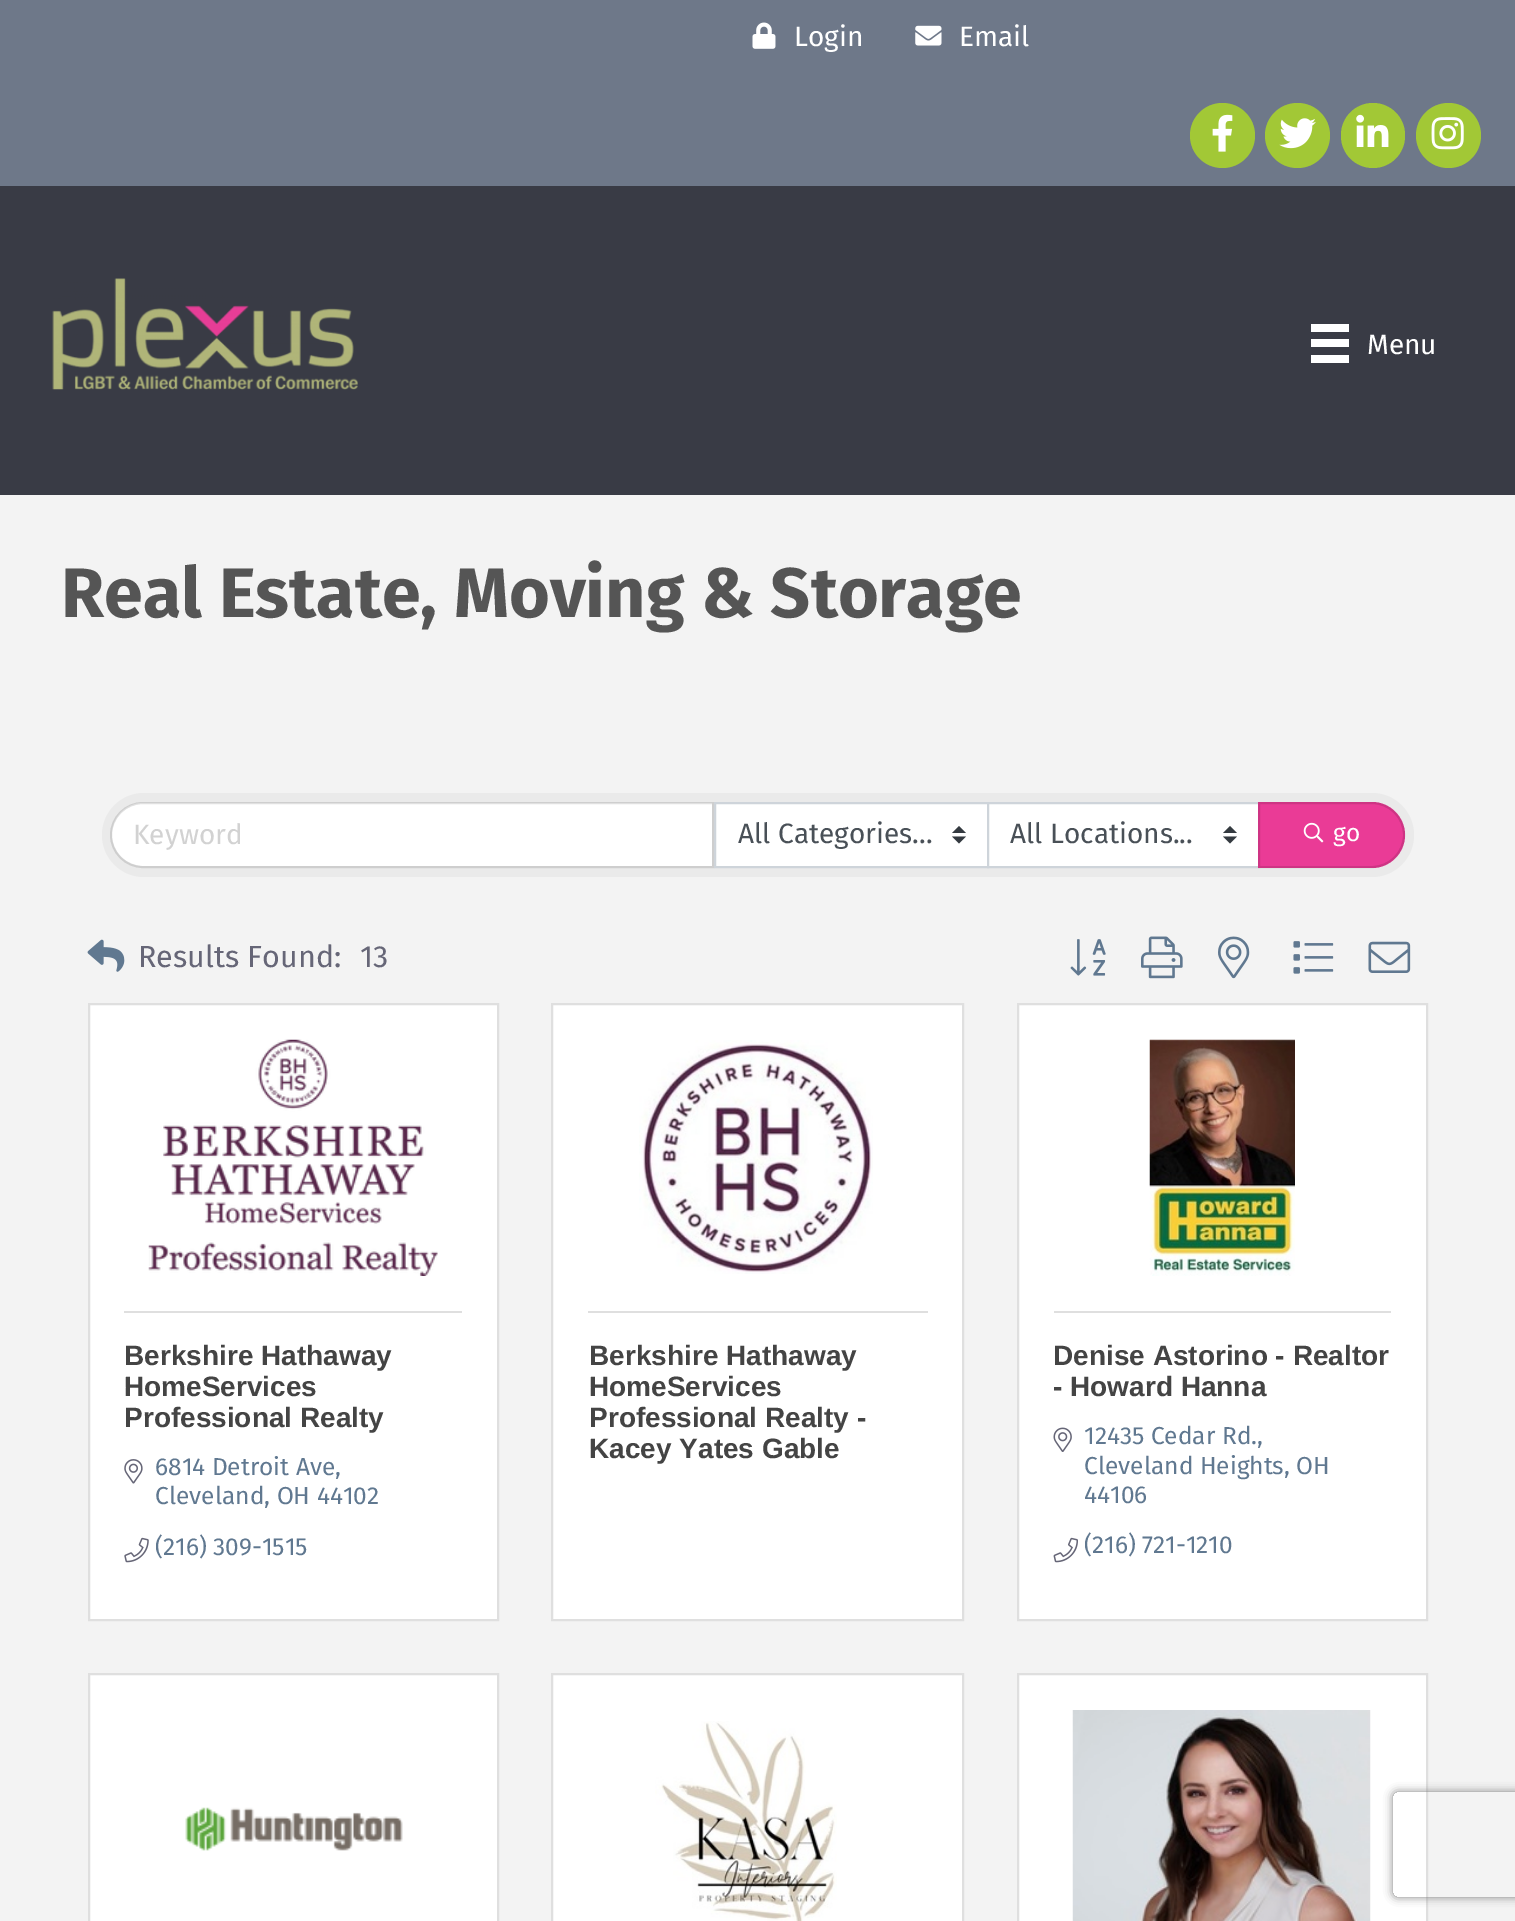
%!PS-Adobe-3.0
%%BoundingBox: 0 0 1515 1921
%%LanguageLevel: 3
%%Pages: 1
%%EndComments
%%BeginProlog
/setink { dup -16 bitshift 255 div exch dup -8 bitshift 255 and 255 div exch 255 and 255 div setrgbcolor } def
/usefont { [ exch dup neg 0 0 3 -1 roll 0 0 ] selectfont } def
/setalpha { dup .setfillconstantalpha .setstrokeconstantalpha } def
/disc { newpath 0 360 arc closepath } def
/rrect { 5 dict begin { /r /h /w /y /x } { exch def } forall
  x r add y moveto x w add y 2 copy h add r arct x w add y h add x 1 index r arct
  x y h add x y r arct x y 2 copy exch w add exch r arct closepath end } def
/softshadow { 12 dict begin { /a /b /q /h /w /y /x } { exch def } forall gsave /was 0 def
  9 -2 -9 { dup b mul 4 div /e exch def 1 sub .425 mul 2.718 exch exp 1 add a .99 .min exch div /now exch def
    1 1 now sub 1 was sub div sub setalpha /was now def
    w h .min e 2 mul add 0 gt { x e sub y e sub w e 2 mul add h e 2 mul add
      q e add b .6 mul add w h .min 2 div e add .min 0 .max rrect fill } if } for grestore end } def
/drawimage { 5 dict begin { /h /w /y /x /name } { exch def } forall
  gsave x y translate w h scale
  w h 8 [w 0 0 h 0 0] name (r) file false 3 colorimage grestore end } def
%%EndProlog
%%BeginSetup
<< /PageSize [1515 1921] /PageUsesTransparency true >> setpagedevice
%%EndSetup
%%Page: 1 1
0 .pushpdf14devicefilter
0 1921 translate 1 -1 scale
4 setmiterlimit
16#6E7889 setink
0 0 1515 1921 rectfill
(img1.raw) 752 22 24 27 drawimage
/FiraSans-Regular 28 usefont
16#FFFFFF setink
794 46 moveto (Login) show
(img2.raw) 915 25 27 21 drawimage
959 46 moveto (Email) show
16#A2C836 setink
1222.5 135.5 32.5 disc fill
(img3.raw) 1212 114 21 38 drawimage
1297.5 135.5 32.5 disc fill
(img4.raw) 1279 118 37 31 drawimage
1341 103 64 65 32 rrect fill
(img5.raw) 1356 114 33 33 drawimage
1448.5 135.5 32.5 disc fill
(img6.raw) 1431 117 33 33 drawimage
16#393B45 setink
0 186 1515 309 rectfill
(img7.raw) 52 278 306 112 drawimage
[
    [1311 324 38 8 16#FFFFFF]
    [1311 339 38 8 16#FFFFFF]
    [1311 355 38 8 16#FFFFFF]
] { aload pop setink rectfill } forall
1367 354 moveto (Menu) show
16#F3F3F3 setink
0 495 1515 1426 rectfill
/FiraSans-Bold 70 usefont
16#555555 setink
61 617 moveto (Real Estate, Moving & Storage) show
16#EAEAEA setink
102 793 1312 84 42 rrect fill
16#FFFFFF setink
143.5 803 moveto 712 803 lineto 712 866 lineto 143.5 866 lineto 126 866 112 852 112 834.5 curveto 112 817 126 803 143.5 803 curveto closepath fill
0.12 setalpha
16#000000 setink
2 setlinewidth
143 803 moveto 713 803 lineto 713 867 lineto 143 867 lineto 125.5 867 111 852.5 111 835 curveto 111 817.5 125.5 803 143 803 curveto closepath stroke
/FiraSans-Regular 28 usefont
1 setalpha
16#D2D2D2 setink
133 844 moveto (Keyword) show
16#FFFFFF setink
716 804 271 62 rectfill
16#343A40 setink
959 826 moveto 952 833 lineto 966 833 lineto closepath 959 843.5 moveto 952 836.5 lineto 966 836.5 lineto closepath fill
16#CED4DA setink
715 803 273 64 rectstroke
16#495057 setink
738 843 moveto (All Categories...) show
16#FFFFFF setink
989 804 269 62 rectfill
16#343A40 setink
1230 826 moveto 1223 833 lineto 1237 833 lineto closepath 1230 843.5 moveto 1223 836.5 lineto 1237 836.5 lineto closepath fill
16#CED4DA setink
988 803 271 64 rectstroke
16#495057 setink
1010 843 moveto (All Locations...) show
16#EA3B96 setink
1258 802 moveto 1372 802 lineto 1390 802 1405 817 1405 835 curveto 1405 853 1390 868 1372 868 curveto 1258 868 lineto closepath fill
0.12 setalpha
16#000000 setink
1259 803 moveto 1372 803 lineto 1389.5 803 1404 817.5 1404 835 curveto 1404 852.5 1389.5 867 1372 867 curveto 1259 867 lineto closepath stroke
1 setalpha
(img8.raw) 1303 822 21 21 drawimage
/FiraSans-Regular 24.5 usefont
16#FFFFFF setink
1333 841 moveto (go) show
(img9.raw) 87 939 38 33 drawimage
/FiraSans-Regular 30.5 usefont
16#666677 setink
138 967 moveto (Results Found:) show
360 967 moveto (13) show
(img10.raw) 1070 939 36 37 drawimage
(img11.raw) 1141 936 42 43 drawimage
(img12.raw) 1218 936 32 43 drawimage
(img13.raw) 1293 941 41 33 drawimage
(img14.raw) 1368 941 43 32 drawimage
16#FFFFFF setink
89 1004 moveto 498 1004 lineto 498 1620 lineto 89 1620 lineto closepath gsave fill grestore
16#DFDFDF setink
stroke
(img15.raw) 148 1039 290 237 drawimage
124 1311 338 2 rectfill
/LiberationSans-Bold 28 usefont
16#444444 setink
[
    [(Berkshire Hathaway) 124 1365]
    [(HomeServices) 124 1396]
    [(Professional Realty) 124 1427]
] { aload pop moveto show } forall
(img16.raw) 124 1459 19 25 drawimage
/FiraSans-Regular 24.5 usefont
16#607890 setink
155 1475 moveto (6814 Detroit Ave,) show
155 1504 moveto (Cleveland, OH 44102) show
(img17.raw) 124 1537 25 26 drawimage
155 1555 moveto (\(216\) 309-1515) show
16#FFFFFF setink
552 1004 moveto 963 1004 lineto 963 1620 lineto 552 1620 lineto closepath gsave fill grestore
16#DFDFDF setink
stroke
(img18.raw) 639 1040 234 234 drawimage
588 1311 340 2 rectfill
/LiberationSans-Bold 28 usefont
16#444444 setink
[
    [(Berkshire Hathaway) 589 1365]
    [(HomeServices) 589 1396]
    [(Professional Realty -) 589 1427]
    [(Kacey Yates Gable) 589 1458]
] { aload pop moveto show } forall
16#FFFFFF setink
1018 1004 moveto 1427 1004 lineto 1427 1620 lineto 1018 1620 lineto closepath gsave fill grestore
16#DFDFDF setink
stroke
(img19.raw) 1149 1039 146 237 drawimage
1054 1311 337 2 rectfill
16#444444 setink
1053 1365 moveto (Denise Astorino - Realtor) show
1053 1396 moveto (- Howard Hanna) show
(img20.raw) 1053 1427 19 25 drawimage
/FiraSans-Regular 24.5 usefont
16#607890 setink
[
    [(12435 Cedar Rd.,) 1084 1444]
    [(Cleveland Heights, OH) 1084 1474]
    [(44106) 1084 1503]
] { aload pop moveto show } forall
(img21.raw) 1053 1537 25 26 drawimage
1084 1553 moveto (\(216\) 721-1210) show
16#FFFFFF setink
89 1674 moveto 498 1674 lineto 498 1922 lineto 89 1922 lineto closepath gsave fill grestore
16#DFDFDF setink
stroke
(img22.raw) 185 1807 218 44 drawimage
16#FFFFFF setink
552 1674 moveto 963 1674 lineto 963 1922 lineto 552 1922 lineto closepath gsave fill grestore
16#DFDFDF setink
stroke
(img23.raw) 655 1721 182 200 drawimage
16#FFFFFF setink
1018 1674 moveto 1427 1674 lineto 1427 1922 lineto 1018 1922 lineto closepath gsave fill grestore
16#DFDFDF setink
stroke
(img24.raw) 1072 1710 299 211 drawimage
gsave
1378 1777 moveto 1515 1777 lineto 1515 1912 lineto 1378 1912 lineto closepath 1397 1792 moveto 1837 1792 lineto 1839 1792 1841 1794 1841 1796 curveto 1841 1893 lineto 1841 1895 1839 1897 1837 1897 curveto 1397 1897 lineto 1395 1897 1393 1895 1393 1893 curveto 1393 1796 lineto 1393 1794 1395 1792 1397 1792 curveto closepath eoclip newpath
16#808080 setink
1393 1792 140 105 4 4.5 1 softshadow
grestore
.poppdf14devicefilter showpage
%%EOF
